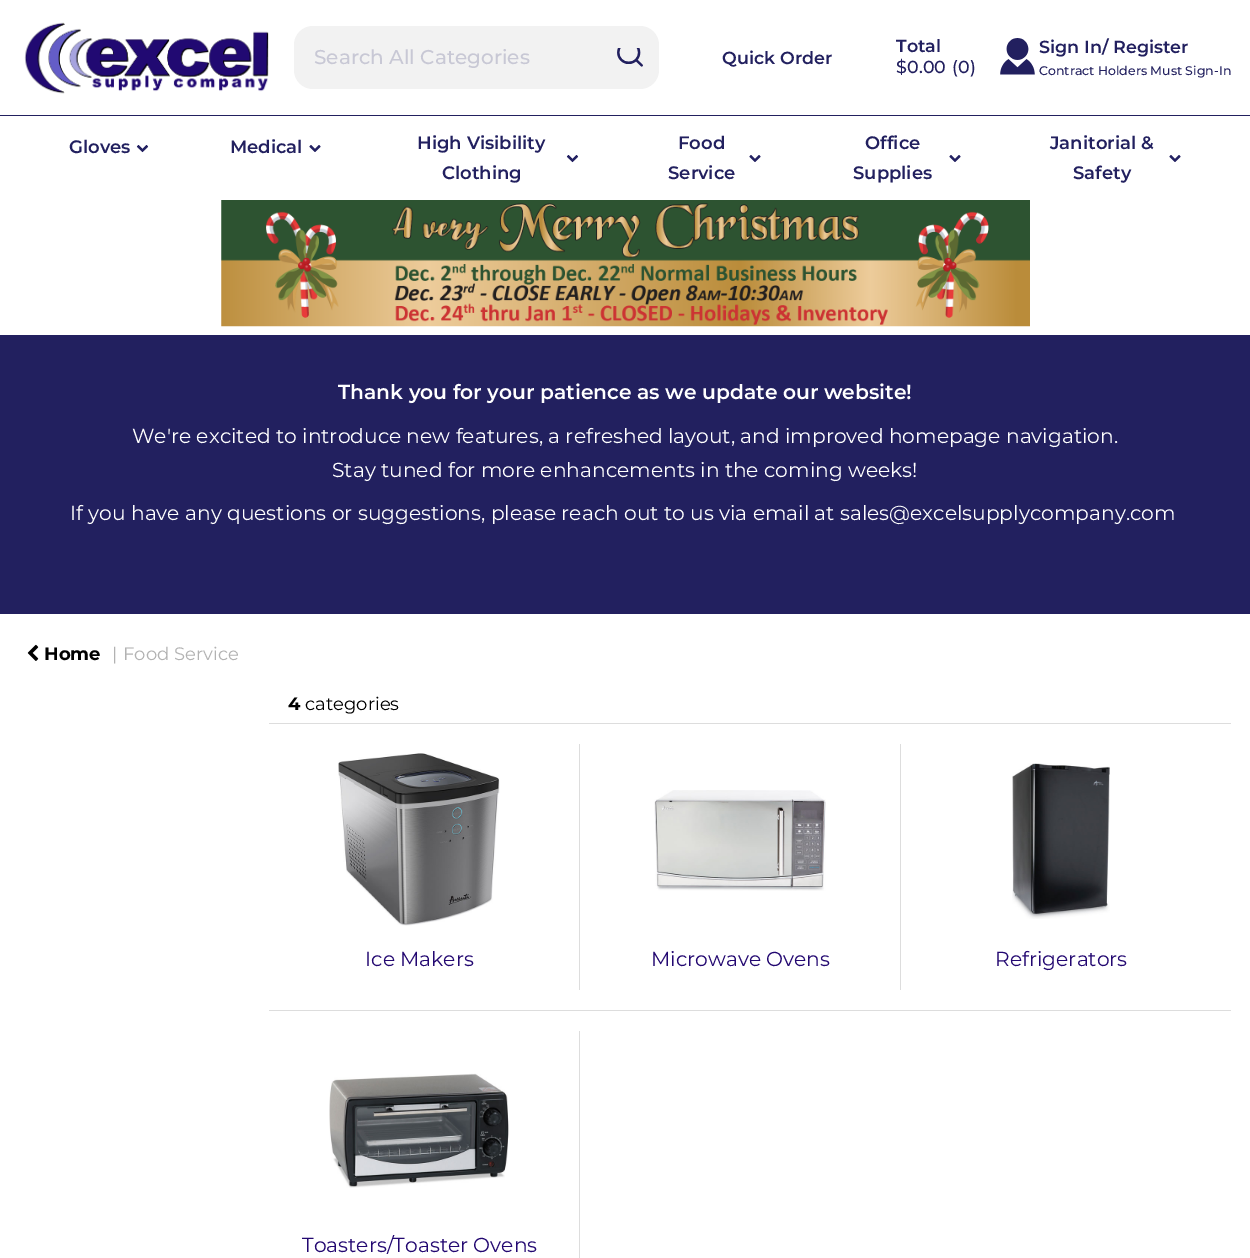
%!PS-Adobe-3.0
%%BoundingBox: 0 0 1250 1258
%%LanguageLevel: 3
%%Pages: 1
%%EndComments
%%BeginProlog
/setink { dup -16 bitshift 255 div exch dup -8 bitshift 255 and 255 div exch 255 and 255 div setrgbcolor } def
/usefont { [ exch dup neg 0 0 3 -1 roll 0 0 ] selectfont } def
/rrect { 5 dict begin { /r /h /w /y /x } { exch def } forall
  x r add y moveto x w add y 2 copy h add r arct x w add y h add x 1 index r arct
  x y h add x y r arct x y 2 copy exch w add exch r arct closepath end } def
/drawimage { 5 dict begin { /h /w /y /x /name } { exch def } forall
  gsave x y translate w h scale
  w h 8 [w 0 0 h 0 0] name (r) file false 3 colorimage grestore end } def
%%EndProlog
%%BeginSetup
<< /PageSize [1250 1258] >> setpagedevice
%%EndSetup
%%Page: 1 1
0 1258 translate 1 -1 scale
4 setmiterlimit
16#FFFFFF setink
0 0 1250 1258 rectfill
(img1.raw) 24 22 245 72 drawimage
16#F2F2F2 setink
294 26 365 63 19 rrect fill
/Montserrat-Medium 20 usefont
16#C8C8D5 setink
314 64 moveto (Search All Categories) show
(img2.raw) 617 48 26 19 drawimage
/Montserrat-SemiBold 17.5 usefont
16#22205F setink
722 64 moveto (Quick Order) show
896 52 moveto (Total) show
/Montserrat-Medium 17.5 usefont
896 73 moveto ($0.00) show
952 73 moveto (\(0\)) show
(img3.raw) 1000 38 35 37 drawimage
/Montserrat-SemiBold 17.5 usefont
1039 53 moveto (Sign In/ Register) show
/Montserrat-Medium 12.5 usefont
1039 75 moveto (Contract Holders Must Sign-In) show
0 115 1250 1 rectfill
/Montserrat-SemiBold 18 usefont
69 153 moveto (Gloves) show
(img4.raw) 136 145 13 8 drawimage
230 153 moveto (Medical) show
(img5.raw) 309 145 12 7 drawimage
417 149 moveto (High Visibility) show
(img4.raw) 566 155 13 8 drawimage
442 179 moveto (Clothing) show
678 149 moveto (Food) show
(img5.raw) 749 155 12 7 drawimage
668 179 moveto (Service) show
865 149 moveto (Office) show
(img5.raw) 949 155 12 7 drawimage
853 179 moveto (Supplies) show
1050 149 moveto (Janitorial &) show
(img5.raw) 1169 155 12 7 drawimage
1073 179 moveto (Safety) show
(img6.raw) 221 200 809 127 drawimage
0 335 1250 279 rectfill
/Montserrat-SemiBold 20.25 usefont
16#FFFFFF setink
338 399 moveto (Thank you for your patience as we update our website!) show
/Montserrat-Thin 20.25 usefont
[
    [(We're excited to introduce new features, a refreshed layout, and improved homepage navigation.) 132 443]
    [(Stay tuned for more enhancements in the coming weeks!) 332 477]
    [(If you have any questions or suggestions, please reach out to us via email at sales@excelsupplycompany.com) 70 520]
] { aload pop moveto show } forall
(img7.raw) 27 644 12 17 drawimage
/Montserrat-Bold 18 usefont
16#000000 setink
44 660 moveto (Home) show
/Montserrat-Thin 18 usefont
16#B2B2B2 setink
112 660 moveto (|) show
123 660 moveto (Food Service) show
/Montserrat-Bold 18 usefont
16#000000 setink
288 710 moveto (4) show
/Montserrat-Thin 18 usefont
305 710 moveto (categories) show
16#DDDDDD setink
269 723 962 1 rectfill
579 744 1 246 rectfill
(img8.raw) 338 753 162 173 drawimage
/Montserrat-Thin 20.25 usefont
16#230871 setink
365 966 moveto (Ice Makers) show
16#DDDDDD setink
900 744 1 246 rectfill
(img9.raw) 654 790 172 101 drawimage
16#230871 setink
651 966 moveto (Microwave Ovens) show
(img10.raw) 1012 763 98 156 drawimage
995 966 moveto (Refrigerators) show
16#DDDDDD setink
269 1010 962 1 rectfill
579 1031 1 227 rectfill
(img11.raw) 329 1073 180 115 drawimage
16#230871 setink
302 1252 moveto (Toasters/Toaster Ovens) show
showpage
%%EOF
